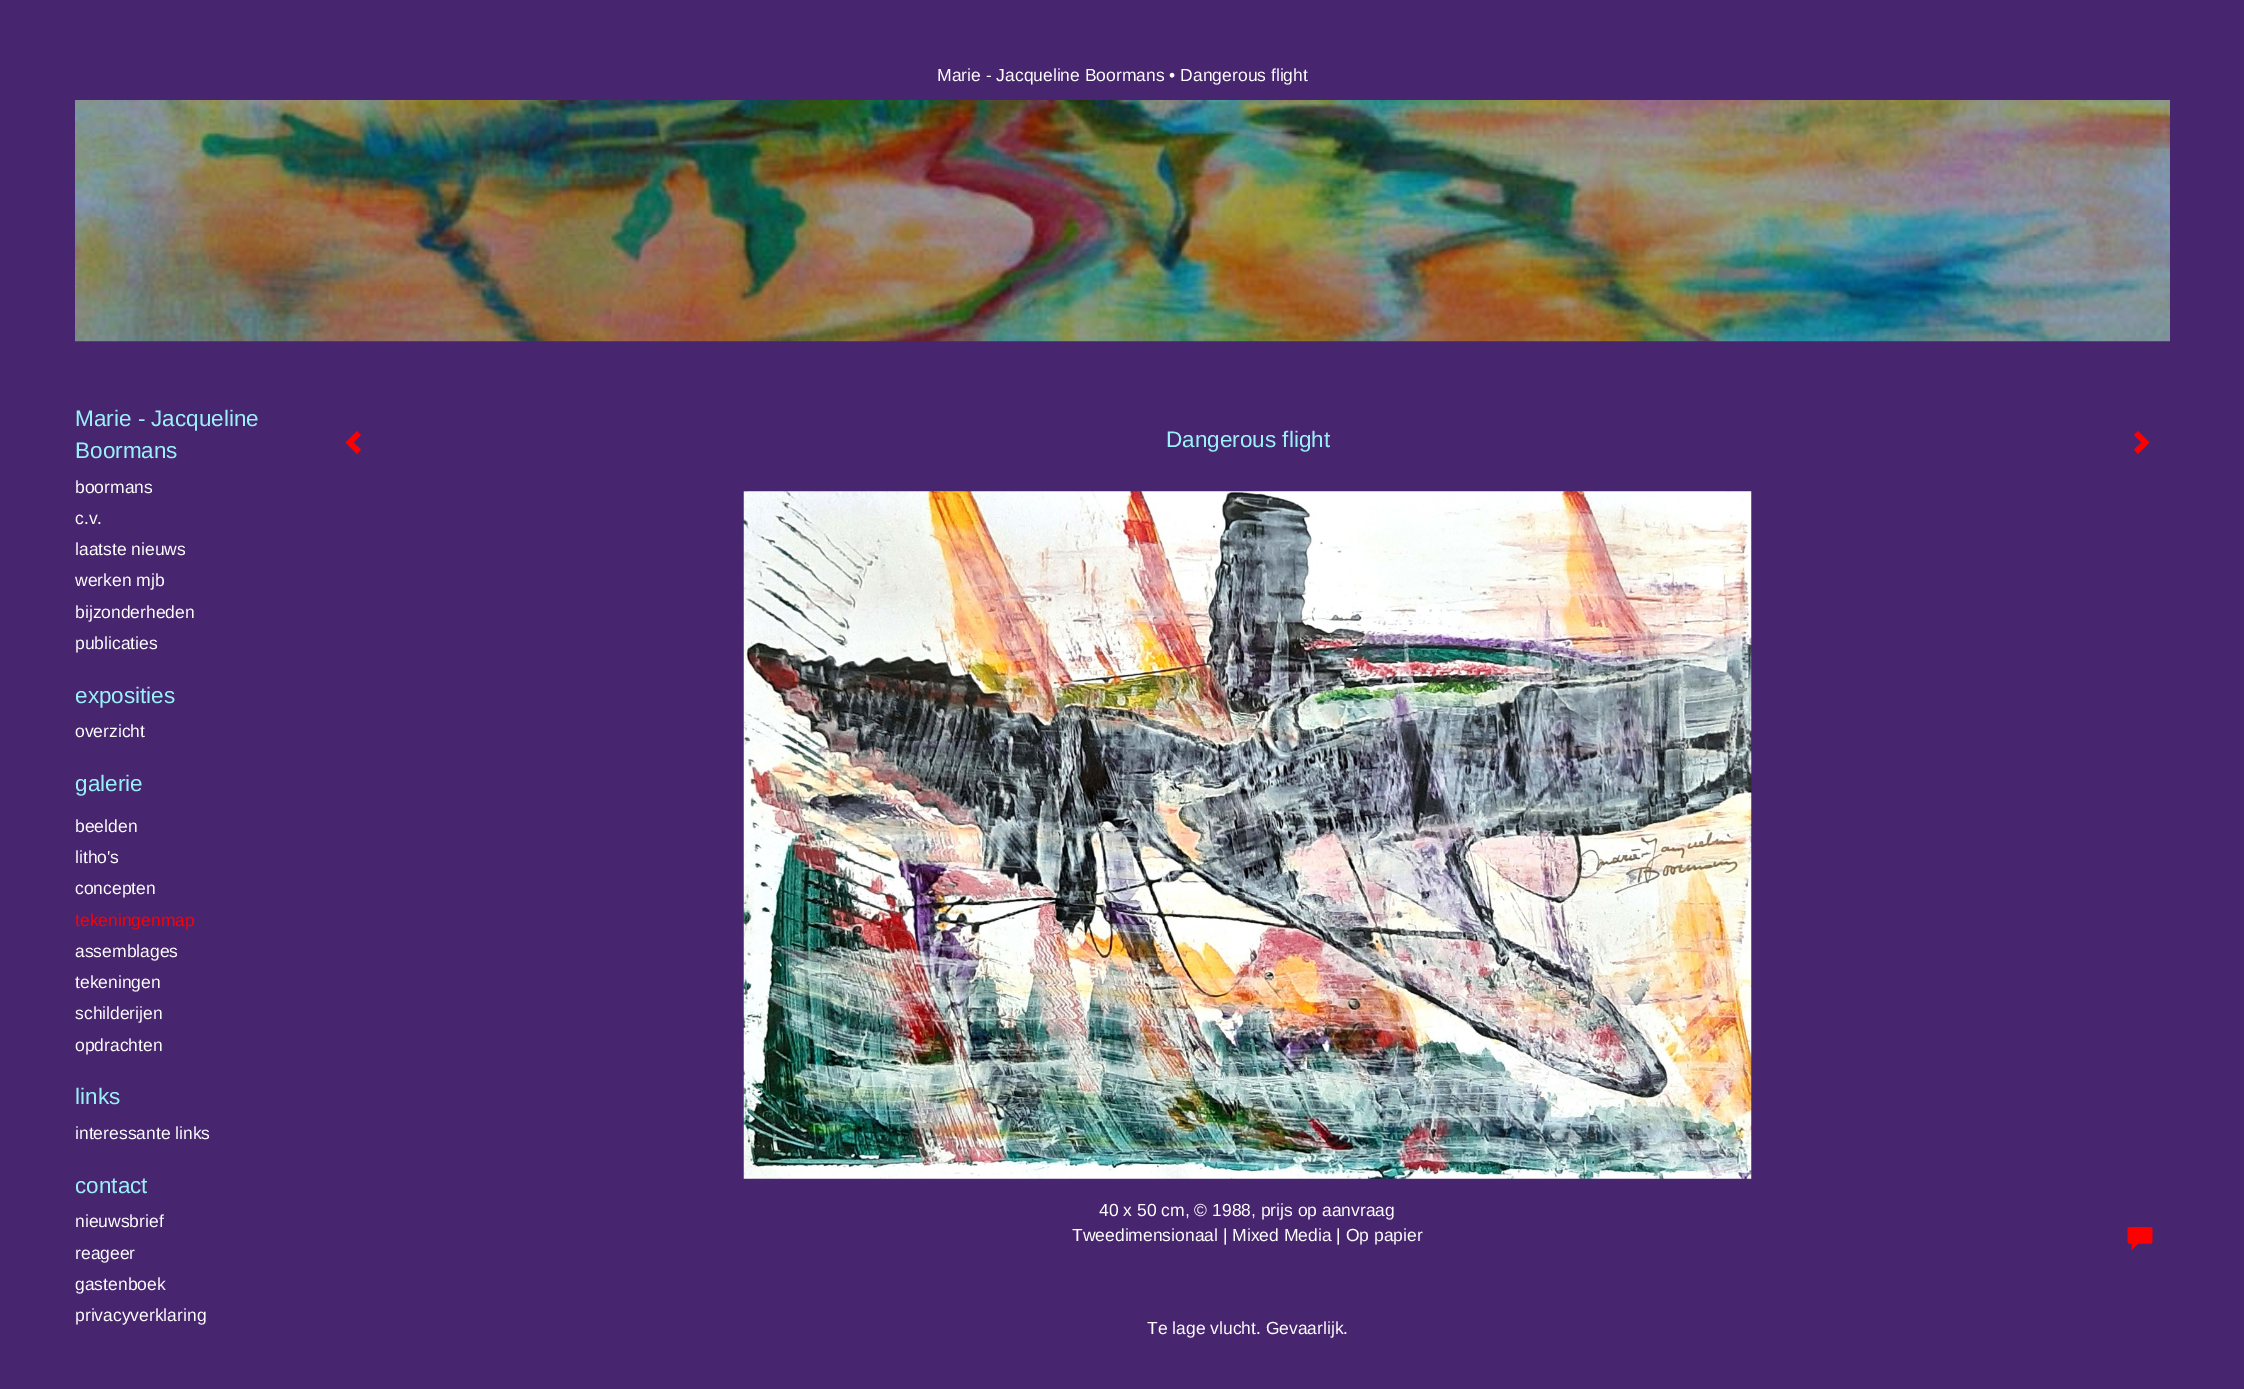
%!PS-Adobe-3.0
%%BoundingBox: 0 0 2244 1389
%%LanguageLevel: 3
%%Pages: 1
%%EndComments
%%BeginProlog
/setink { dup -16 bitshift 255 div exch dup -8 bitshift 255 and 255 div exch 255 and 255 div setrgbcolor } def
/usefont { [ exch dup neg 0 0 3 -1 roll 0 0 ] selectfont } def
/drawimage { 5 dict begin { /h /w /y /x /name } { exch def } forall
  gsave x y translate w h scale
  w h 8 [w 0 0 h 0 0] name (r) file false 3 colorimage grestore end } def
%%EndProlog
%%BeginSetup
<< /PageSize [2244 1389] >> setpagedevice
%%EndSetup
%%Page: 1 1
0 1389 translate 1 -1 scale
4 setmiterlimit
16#48256F setink
0 0 2244 1389 rectfill
/LiberationSans-Regular 17.5 usefont
16#FFFFFF setink
937 81 moveto (Marie - Jacqueline Boormans • Dangerous flight) show
(img1.raw) 75 100 2095 242 drawimage
/LiberationSans-Regular 22.5 usefont
16#9AF0F9 setink
75 426 moveto (Marie - Jacqueline) show
75 458 moveto (Boormans) show
/LiberationSans-Regular 17.5 usefont
16#FFFFFF setink
[
    [(boormans) 75 493]
    [(c.v.) 75 524]
    [(laatste nieuws) 75 555]
    [(werken mjb) 75 586]
    [(bijzonderheden) 75 618]
    [(publicaties) 75 649]
] { aload pop moveto show } forall
/LiberationSans-Regular 22.5 usefont
16#9AF0F9 setink
75 703 moveto (exposities) show
/LiberationSans-Regular 17.5 usefont
16#FFFFFF setink
75 737 moveto (overzicht) show
/LiberationSans-Regular 22.5 usefont
16#9AF0F9 setink
75 791 moveto (galerie) show
/LiberationSans-Regular 17.5 usefont
16#FFFFFF setink
[
    [(beelden) 75 832]
    [(litho's) 75 863]
    [(concepten) 75 894]
] { aload pop moveto show } forall
16#FF0000 setink
75 926 moveto (tekeningenmap) show
16#FFFFFF setink
[
    [(assemblages) 75 957]
    [(tekeningen) 75 988]
    [(schilderijen) 75 1019]
    [(opdrachten) 75 1051]
] { aload pop moveto show } forall
/LiberationSans-Regular 22.5 usefont
16#9AF0F9 setink
75 1104 moveto (links) show
/LiberationSans-Regular 17.5 usefont
16#FFFFFF setink
75 1139 moveto (interessante links) show
/LiberationSans-Regular 22.5 usefont
16#9AF0F9 setink
75 1193 moveto (contact) show
/LiberationSans-Regular 17.5 usefont
16#FFFFFF setink
[
    [(nieuwsbrief) 75 1227]
    [(reageer) 75 1259]
    [(gastenboek) 75 1290]
    [(privacyverklaring) 75 1321]
] { aload pop moveto show } forall
16#FF0000 setink
361 435 moveto 353.5 442.5 lineto 361 449.5 lineto 357 454 lineto 345.5 442.5 lineto 357 431 lineto closepath fill
/LiberationSans-Regular 22.5 usefont
16#9AF0F9 setink
1166 447 moveto (Dangerous flight) show
16#FF0000 setink
2149.5 442.5 moveto 2138 454 lineto 2134 449.5 lineto 2141.5 442.5 lineto 2134 435 lineto 2138 431 lineto closepath fill
(img2.raw) 743 491 1009 688 drawimage
/LiberationSans-Regular 17.5 usefont
16#FFFFFF setink
1099 1216 moveto (40 x 50 cm, © 1988, prijs op aanvraag) show
1072 1241 moveto (Tweedimensionaal | Mixed Media | Op papier) show
(img3.raw) 2127 1227 26 23 drawimage
1147 1334 moveto (Te lage vlucht. Gevaarlijk.) show
showpage
%%EOF
